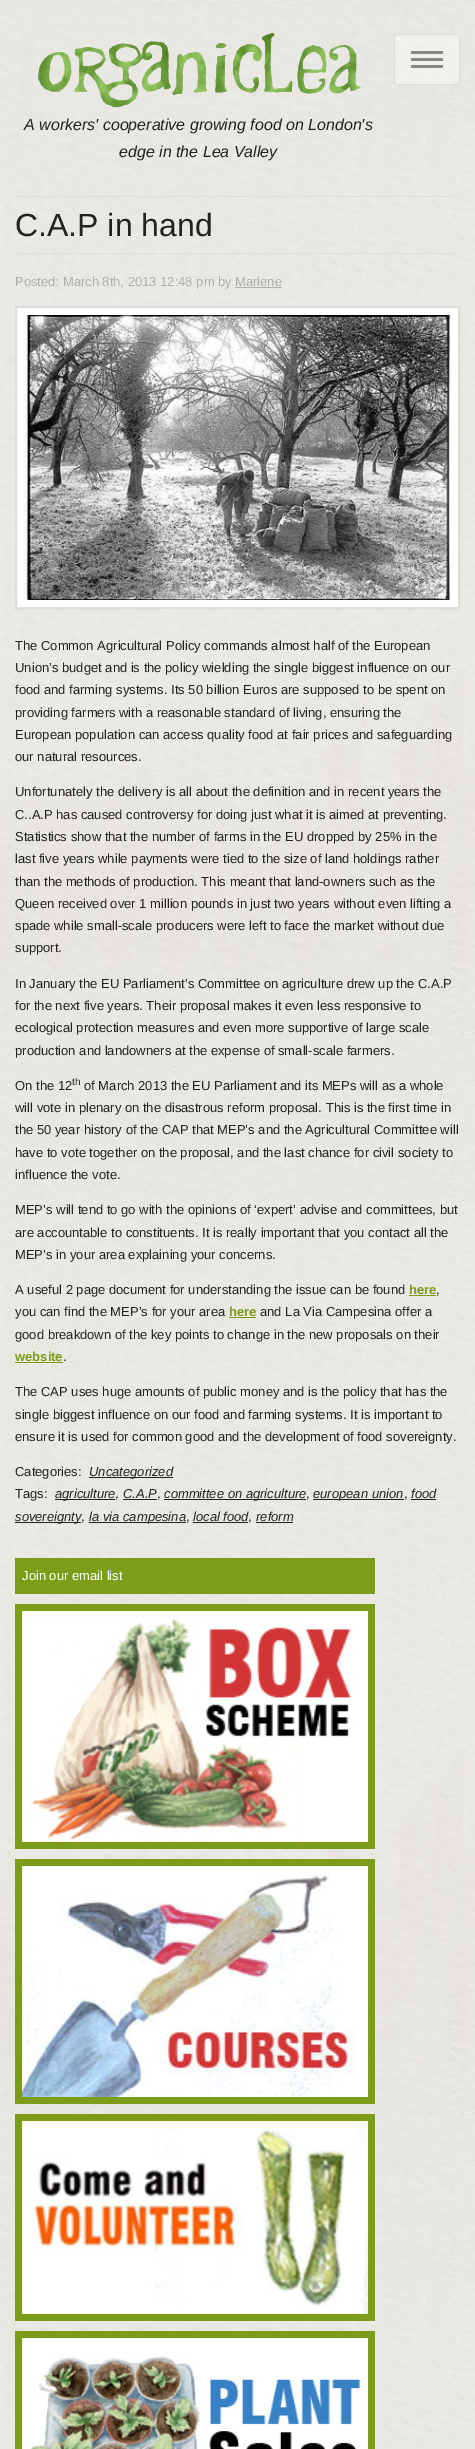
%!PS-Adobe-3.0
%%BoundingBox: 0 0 475 2449
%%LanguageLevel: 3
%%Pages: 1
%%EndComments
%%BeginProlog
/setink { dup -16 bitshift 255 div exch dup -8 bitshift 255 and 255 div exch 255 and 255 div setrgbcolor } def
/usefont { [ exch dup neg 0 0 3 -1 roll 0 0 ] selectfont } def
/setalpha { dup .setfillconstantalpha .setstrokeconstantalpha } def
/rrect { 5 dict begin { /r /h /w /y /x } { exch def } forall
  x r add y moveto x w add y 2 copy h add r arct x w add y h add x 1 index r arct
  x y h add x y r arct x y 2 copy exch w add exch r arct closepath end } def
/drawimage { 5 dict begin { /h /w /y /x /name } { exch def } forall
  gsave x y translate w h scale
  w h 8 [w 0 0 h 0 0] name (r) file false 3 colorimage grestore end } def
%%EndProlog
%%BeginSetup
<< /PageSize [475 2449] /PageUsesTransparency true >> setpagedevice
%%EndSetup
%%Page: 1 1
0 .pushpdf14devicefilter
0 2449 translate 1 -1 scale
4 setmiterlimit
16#E9E8E3 setink
0 0 475 2449 rectfill
(img1.raw) 0 0 475 2447 drawimage
0.4 setalpha
16#FFFFFF setink
394.5 34.5 65 50 3.5 rrect fill
1 setalpha
16#DDDDDD setink
394.5 34.5 65 50 3.5 rrect stroke
16#888888 setink
411 51 32 3 1 rrect fill
411 58 32 3 1 rrect fill
411 65 32 3 1 rrect fill
(img2.raw) 34 30 330 81 drawimage
/LiberationSans-Italic 16 usefont
16#222222 setink
24 130 moveto (A workers' cooperative growing food on London's) show
119 157 moveto (edge in the Lea Valley) show
16#DDDDDD setink
15 196 445 1 rectfill
15 253 445 1 rectfill
/LiberationSans-Regular 32 usefont
16#222222 setink
15 236 moveto (C.A.P in hand) show
/LiberationSans-Regular 13 usefont
16#AFAEAD setink
[
    [(Posted: March 8th, 2013 12:48 pm) 15 286]
    [(by) 218 286]
    [(Marlene) 235 286]
] { aload pop moveto show } forall
0.64 setalpha
16#8E8E8E setink
235 287 47 1 rectfill
1 setalpha
16#FFFFFF setink
16 307 moveto 459 307 lineto 459 608 lineto 16 608 lineto closepath gsave fill grestore
16#DDDDDD setink
2 setlinewidth
stroke
(img3.raw) 24 315 427 285 drawimage
16#222222 setink
[
    [(The Common Agricultural Policy commands almost half of the European) 15 650]
    [(Union’s budget and is the policy wielding the single biggest influence on our) 15 672]
    [(food and farming systems. Its 50 billion Euros are supposed to be spent on) 15 694]
    [(providing farmers with a reasonable standard of living, ensuring the) 15 717]
    [(European population can access quality food at fair prices and safeguarding) 15 739]
    [(our natural resources.) 15 761]
    [(Unfortunately the delivery is all about the definition and in recent years the) 15 796]
    [(C..A.P has caused controversy for doing just what it is aimed at preventing.) 15 819]
    [(Statistics show that the number of farms in the EU dropped by 25% in the) 15 841]
    [(last five years while payments were tied to the size of land holdings rather) 15 863]
    [(than the methods of production. This meant that land-owners such as the) 15 886]
    [(Queen received over 1 million pounds in just two years without even lifting a) 15 908]
    [(spade while small-scale producers were left to face the market without due) 15 930]
    [(support.) 15 952]
    [(In January the EU Parliament’s Committee on agriculture drew up the C.A.P) 15 988]
    [(for the next five years. Their proposal makes it even less responsive to) 15 1010]
    [(ecological protection measures and even more supportive of large scale) 15 1032]
    [(production and landowners at the expense of small-scale farmers.) 15 1055]
    [(On the 12) 15 1090]
] { aload pop moveto show } forall
/LiberationSans-Regular 10 usefont
72 1085 moveto (th) show
/LiberationSans-Regular 13 usefont
[
    [(of March 2013 the EU Parliament and its MEPs will as a whole) 84 1090]
    [(will vote in plenary on the disastrous reform proposal. This is the first time in) 15 1112]
    [(the 50 year history of the CAP that MEP’s and the Agricultural Committee will) 15 1134]
    [(have to vote together on the proposal, and the last chance for civil society to) 15 1157]
    [(influence the vote.) 15 1179]
    [(MEP’s will tend to go with the opinions of ‘expert’ advise and committees, but) 15 1214]
    [(are accountable to constituents. It is really important that you contact all the) 15 1237]
    [(MEP’s in your area explaining your concerns.) 15 1259]
    [(A useful 2 page document for understanding the issue can be found) 15 1294]
] { aload pop moveto show } forall
/LiberationSans-Bold 13 usefont
16#7D9C17 setink
409 1294 moveto (here) show
409 1295 27 1 rectfill
/LiberationSans-Regular 13 usefont
16#222222 setink
436 1294 moveto (,) show
15 1316 moveto (you can find the MEP’s for your area) show
/LiberationSans-Bold 13 usefont
16#7D9C17 setink
229 1316 moveto (here) show
229 1317 27 1 rectfill
/LiberationSans-Regular 13 usefont
16#222222 setink
260 1316 moveto (and La Via Campesina offer a) show
15 1339 moveto (good breakdown of the key points to change in the new proposals on their) show
/LiberationSans-Bold 13 usefont
16#7D9C17 setink
15 1361 moveto (website) show
15 1362 48 1 rectfill
/LiberationSans-Regular 13 usefont
16#222222 setink
[
    [(.) 63 1361]
    [(The CAP uses huge amounts of public money and is the policy that has the) 15 1396]
    [(single biggest influence on our food and farming systems. It is important to) 15 1419]
    [(ensure it is used for common good and the development of food sovereignty.) 15 1441]
    [(Categories:) 15 1476]
] { aload pop moveto show } forall
89 1477 84 1 rectfill
/LiberationSans-Italic 13 usefont
89 1476 moveto (Uncategorized) show
/LiberationSans-Regular 13 usefont
15 1498 moveto (Tags:) show
55 1499 60 1 rectfill
/LiberationSans-Italic 13 usefont
55 1498 moveto (agriculture) show
/LiberationSans-Regular 13 usefont
115 1498 moveto (,) show
/LiberationSans-Italic 13 usefont
123 1498 moveto (C.A.P) show
123 1499 34 1 rectfill
/LiberationSans-Regular 13 usefont
157 1498 moveto (,) show
164 1499 142 1 rectfill
/LiberationSans-Italic 13 usefont
164 1498 moveto (committee on agriculture) show
/LiberationSans-Regular 13 usefont
306 1498 moveto (,) show
313 1499 91 1 rectfill
/LiberationSans-Italic 13 usefont
313 1498 moveto (european union) show
/LiberationSans-Regular 13 usefont
404 1498 moveto (,) show
/LiberationSans-Italic 13 usefont
411 1498 moveto (food) show
411 1499 25 1 rectfill
15 1522 66 1 rectfill
15 1521 moveto (sovereignty) show
89 1522 97 1 rectfill
89 1521 moveto (la via campesina) show
193 1521 moveto (local food) show
193 1522 55 1 rectfill
256 1521 moveto (reform) show
256 1522 37 1 rectfill
/LiberationSans-Regular 13 usefont
[
    [(,) 81 1521]
    [(,) 186 1521]
    [(,) 248 1521]
] { aload pop moveto show } forall
16#7D9C17 setink
15 1558 360 36 rectfill
16#FFFFFF setink
22 1580 moveto (Join our email list) show
16#7D9C17 setink
15 1604 360 245 rectfill
(img4.raw) 22 1611 346 231 drawimage
15 1859 360 245 rectfill
(img5.raw) 22 1866 346 231 drawimage
15 2114 360 207 rectfill
(img6.raw) 22 2121 346 193 drawimage
15 2331 360 118 rectfill
(img7.raw) 22 2338 346 111 drawimage
.poppdf14devicefilter showpage
%%EOF
